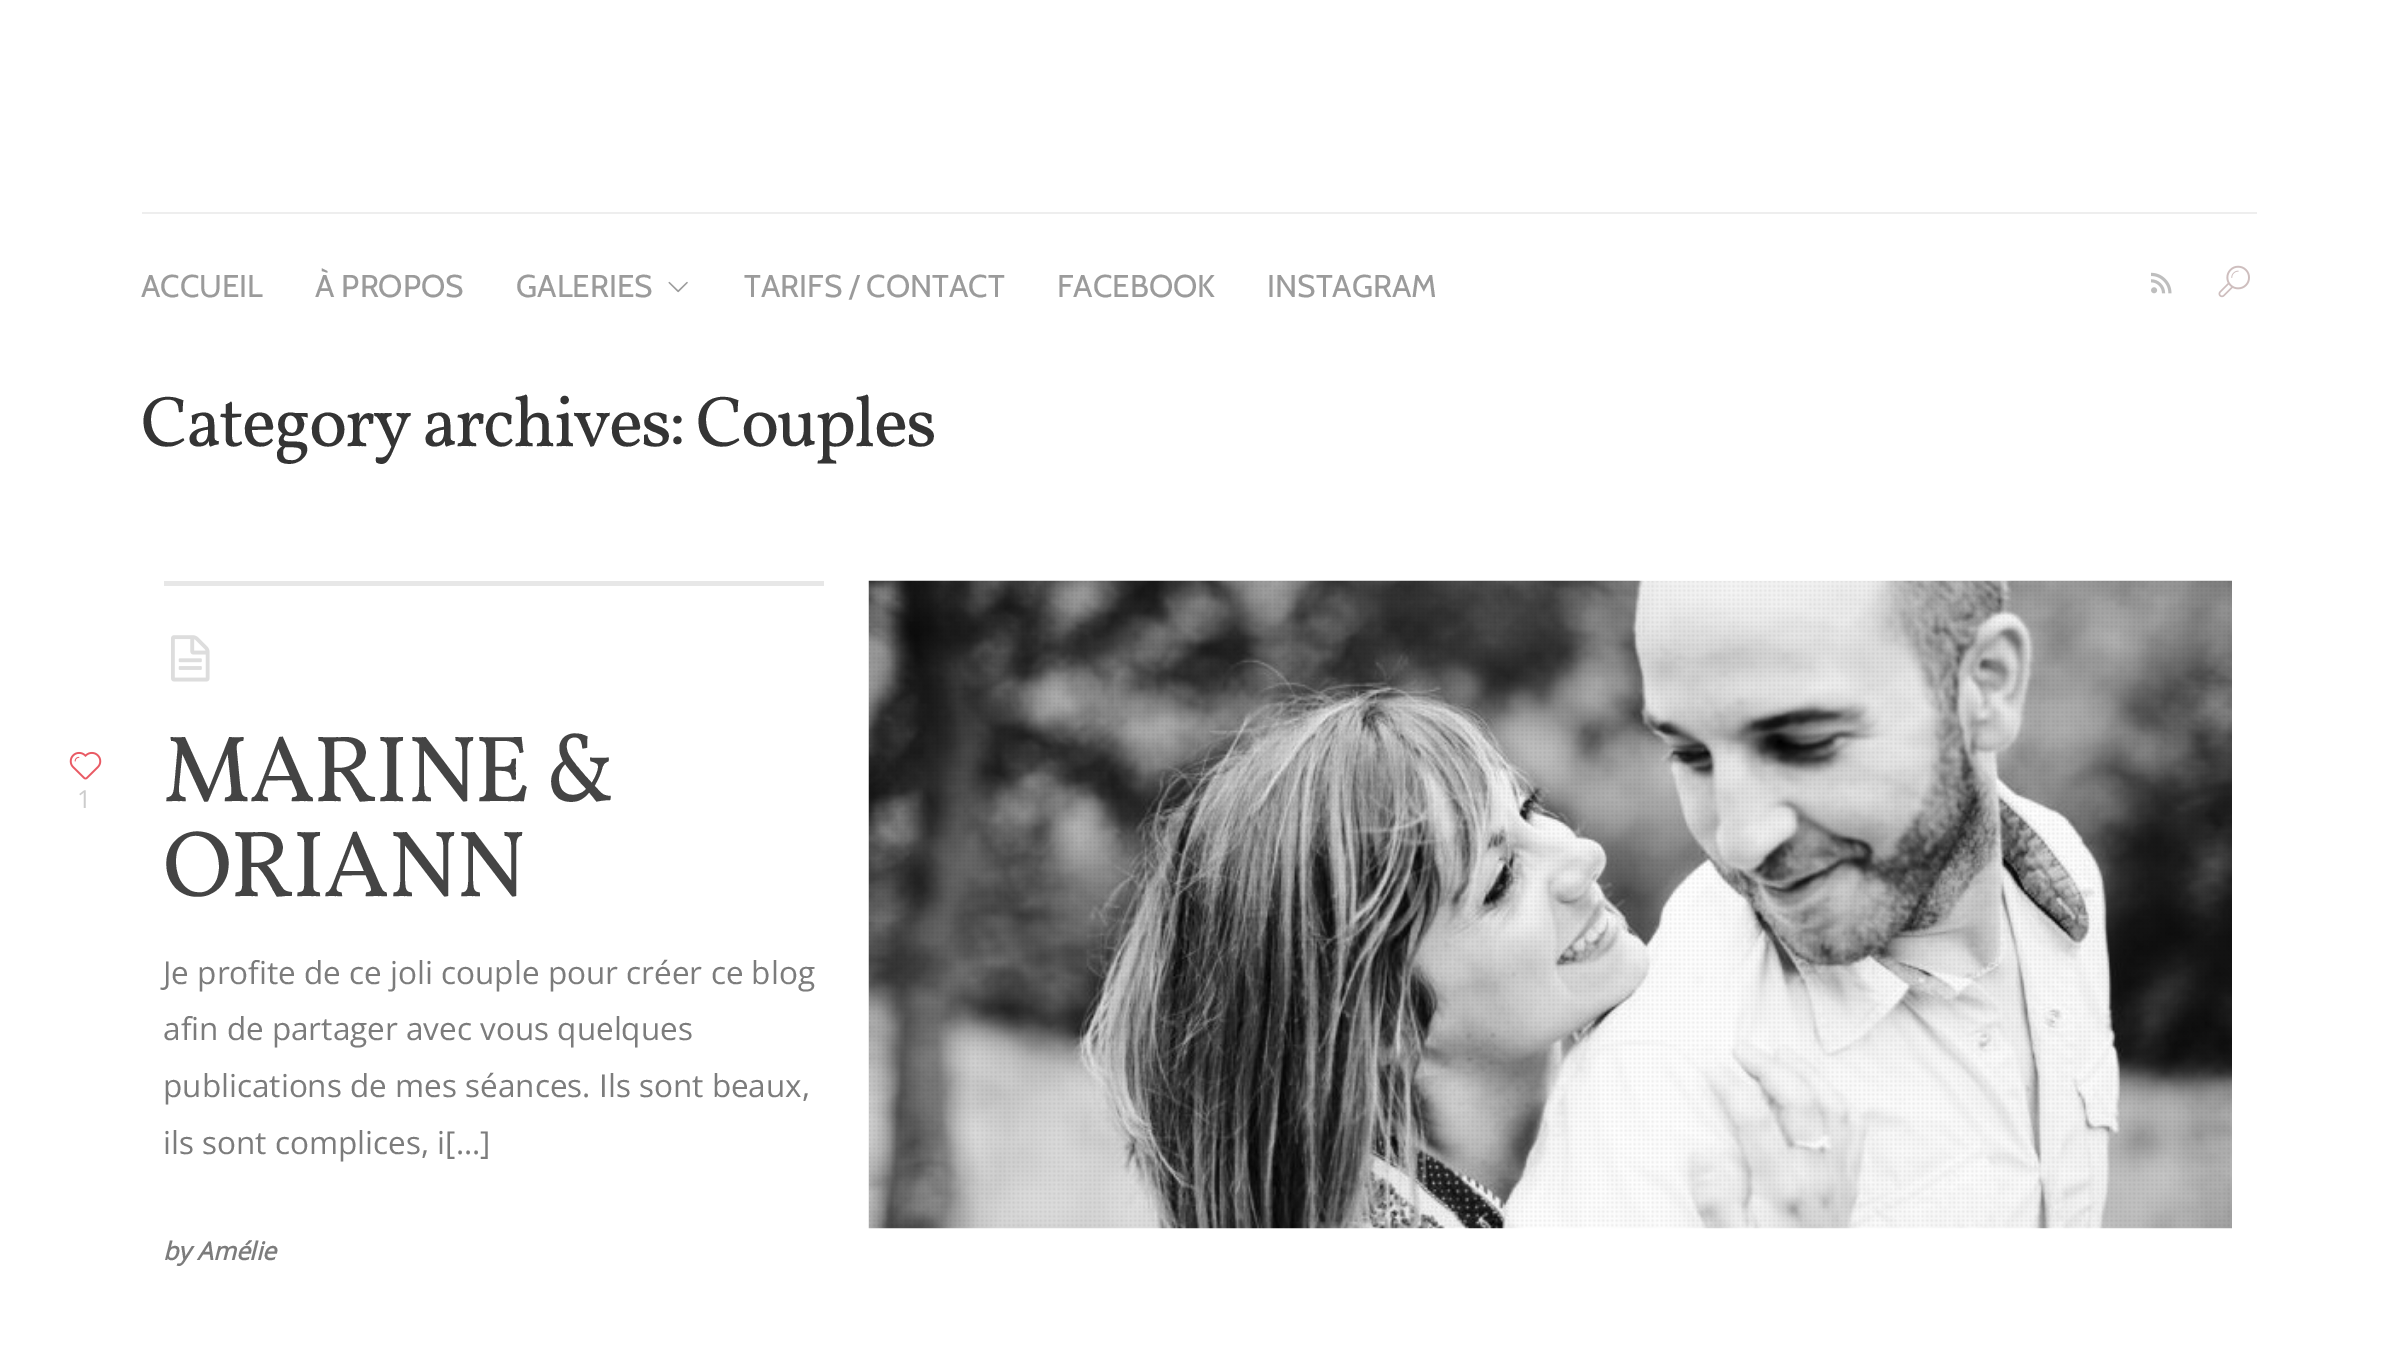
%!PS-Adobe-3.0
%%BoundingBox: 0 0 2395 1365
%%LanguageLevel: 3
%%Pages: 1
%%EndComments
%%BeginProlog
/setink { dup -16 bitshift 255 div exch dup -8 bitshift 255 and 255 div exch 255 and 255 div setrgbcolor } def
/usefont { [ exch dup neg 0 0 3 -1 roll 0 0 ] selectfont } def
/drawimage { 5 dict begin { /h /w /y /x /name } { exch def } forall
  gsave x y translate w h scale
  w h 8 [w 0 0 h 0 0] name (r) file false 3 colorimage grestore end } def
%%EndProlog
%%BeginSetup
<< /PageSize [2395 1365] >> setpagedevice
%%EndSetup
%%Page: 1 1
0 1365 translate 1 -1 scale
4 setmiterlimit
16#FFFFFF setink
0 0 2395 1365 rectfill
16#EEEEEE setink
142 212 2115 2 rectfill
/Cabin-Regular 31.5 usefont
16#9B9B9B setink
[
    [(ACCUEIL) 141 297]
    [(À PROPOS) 315 297]
    [(GALERIES) 516 297]
] { aload pop moveto show } forall
(img1.raw) 668 281 20 12 drawimage
[
    [(TARIFS / CONTACT) 744 297]
    [(FACEBOOK) 1057 297]
    [(INSTAGRAM) 1267 297]
] { aload pop moveto show } forall
(img2.raw) 2151 272 21 22 drawimage
(img3.raw) 2218 265 32 33 drawimage
/Vollkorn-Regular 72 usefont
16#343434 setink
141 446 moveto -2.25 0 (Category archives: Couples) ashow
16#E7E7E7 setink
164 581 660 5 rectfill
(img4.raw) 171 635 39 47 drawimage
(img5.raw) 69 751 33 29 drawimage
/OpenSans-Regular 24.75 usefont
16#CCCCCC setink
77 808 moveto (1) show
/Vollkorn-Regular 94.5 usefont
16#444444 setink
163 801 moveto -2.25 0 (MARINE &) ashow
163 896 moveto -2.25 0 (ORIANN) ashow
/OpenSans-Regular 31.5 usefont
16#7C7C7C setink
[
    [(Je profite de ce joli couple pour créer ce blog) 163 984]
    [(afin de partager avec vous quelques) 163 1040]
    [(publications de mes séances. Ils sont beaux,) 163 1097]
    [(ils sont complices, i[...]) 163 1154]
] { aload pop moveto show } forall
/OpenSans-BoldItalic 24.75 usefont
163 1260 moveto (by Amélie) show
(img6.raw) 868 580 1364 649 drawimage
(img7.raw) 869 581 1361 646 drawimage
showpage
%%EOF
